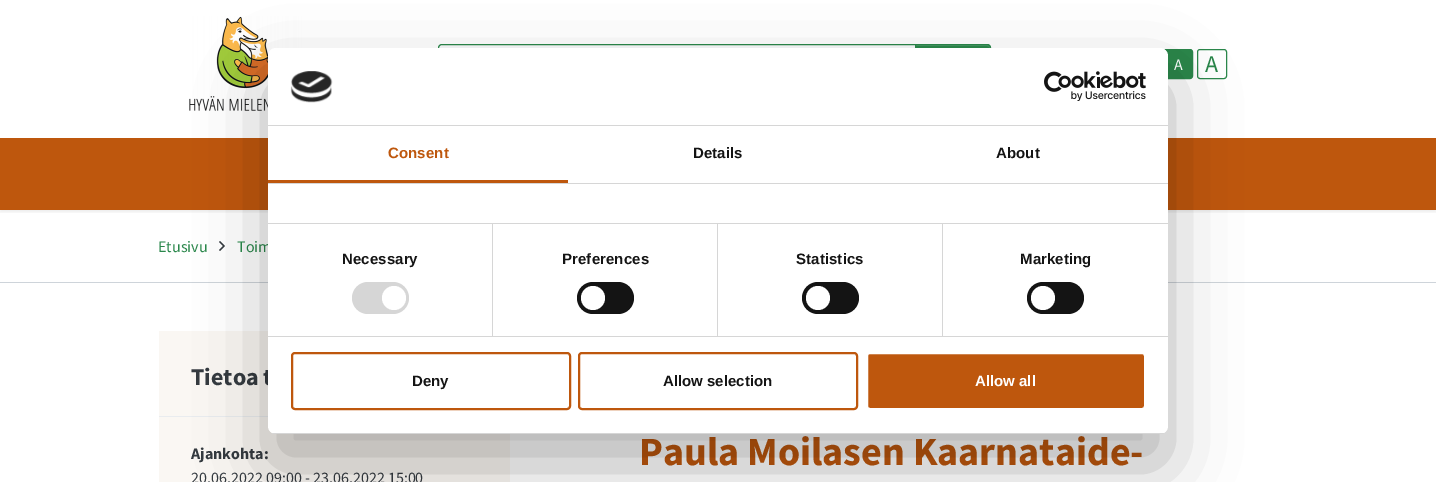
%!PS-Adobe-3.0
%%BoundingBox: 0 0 1436 482
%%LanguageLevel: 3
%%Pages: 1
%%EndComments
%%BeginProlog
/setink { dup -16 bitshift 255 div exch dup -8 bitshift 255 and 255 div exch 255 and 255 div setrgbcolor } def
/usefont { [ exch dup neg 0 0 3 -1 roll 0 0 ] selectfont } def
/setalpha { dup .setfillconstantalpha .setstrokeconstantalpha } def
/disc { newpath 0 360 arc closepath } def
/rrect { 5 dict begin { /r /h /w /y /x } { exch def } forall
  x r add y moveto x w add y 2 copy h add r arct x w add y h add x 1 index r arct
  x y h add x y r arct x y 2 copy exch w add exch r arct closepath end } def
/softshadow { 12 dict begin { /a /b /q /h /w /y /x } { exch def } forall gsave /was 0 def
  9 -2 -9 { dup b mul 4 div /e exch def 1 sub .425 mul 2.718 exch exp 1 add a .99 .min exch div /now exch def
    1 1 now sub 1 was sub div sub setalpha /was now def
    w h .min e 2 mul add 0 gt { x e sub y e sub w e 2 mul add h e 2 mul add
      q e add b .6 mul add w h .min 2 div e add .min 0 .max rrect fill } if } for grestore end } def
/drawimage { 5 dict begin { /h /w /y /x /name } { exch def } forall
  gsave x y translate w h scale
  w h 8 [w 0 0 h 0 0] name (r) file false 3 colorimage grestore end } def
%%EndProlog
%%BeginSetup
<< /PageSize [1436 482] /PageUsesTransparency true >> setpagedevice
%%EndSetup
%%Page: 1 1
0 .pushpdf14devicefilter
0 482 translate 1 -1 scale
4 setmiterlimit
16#FFFFFF setink
0 0 1436 482 rectfill
gsave
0 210 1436 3 rectclip
16#000000 setink
0 -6 1436 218 0 2 0.07 softshadow
grestore
(img1.raw) 189 16 113 95 drawimage
16#F8F9FA setink
442 44.5 moveto 915.5 44.5 lineto 915.5 83.5 lineto 442 83.5 lineto 440 83.5 438.5 82 438.5 80 curveto 438.5 48 lineto 438.5 46 440 44.5 442 44.5 curveto closepath gsave fill grestore
16#2A874B setink
stroke
915 44 moveto 987 44 lineto 989 44 991 46 991 48 curveto 991 80 lineto 991 82 989 84 987 84 curveto 915 84 lineto closepath fill
16#4A9966 setink
916 46 moveto 987 46 lineto 989 46 990 47 990 49 curveto 990 48 lineto 990 46 989 45 987 45 curveto 916 45 lineto closepath fill
16#2A874B setink
915.5 44.5 moveto 987 44.5 lineto 989 44.5 990.5 46 990.5 48 curveto 990.5 80 lineto 990.5 82 989 83.5 987 83.5 curveto 915.5 83.5 lineto closepath stroke
1163.5 49.5 29 29 2.5 rrect gsave fill grestore
stroke
/SourceSansPro-Regular 16 usefont
16#FFFFFF setink
1174 70 moveto (A) show
16#2A874B setink
1197.5 49.5 29 29 2.5 rrect stroke
/SourceSansPro-Regular 24 usefont
1205 72 moveto (A) show
16#BE570D setink
0 138 1436 72 rectfill
16#CED4DA setink
0 282 1436 1 rectfill
/SourceSansPro-Regular 16 usefont
16#2A874B setink
158 252 moveto (Etusivu) show
(img2.raw) 219 241 6 10 drawimage
237 252 moveto (Toim) show
16#FAF7F3 setink
159 331 109 85 rectfill
/SourceSansPro-Bold 24 usefont
16#343A40 setink
191 385 moveto (Tietoa t) show
16#E9ECEF setink
159 416 109 1 rectfill
16#FAF7F3 setink
159 417 351 65 rectfill
/SourceSansPro-Bold 16 usefont
16#343A40 setink
191 459 moveto (Ajankohta:) show
/SourceSansPro-Regular 16 usefont
191 483 moveto (20.06.2022 09:00 - 23.06.2022 15:00) show
/SourceSansPro-Bold 40 usefont
16#BE570D setink
639 465 moveto (Paula Moilasen Kaarnataide-) show
16#000000 setink
268 80 900 386 8 34 0.3 softshadow
16#FFFFFF setink
268 48 900 386 8 rrect fill
16#D6D6D6 setink
268 125 900 1 rectfill
(img3.raw) 290 71 43 32 drawimage
(img4.raw) 1044 71 102 30 drawimage
268 183 900 1 rectfill
16#BE570D setink
268 180 300 3 rectfill
/LiberationSans-Bold 15 usefont
388 158 moveto 0.1 0 (Consent) ashow
16#141414 setink
693 158 moveto 0.1 0 (Details) ashow
996 158 moveto 0.1 0 (About) ashow
[
    [268 223 900 1 16#D6D6D6]
    [268 336 900 1 16#D6D6D6]
    [492 224 1 112 16#D6D6D6]
] { aload pop setink rectfill } forall
16#141414 setink
342 264 moveto 0.1 0 (Necessary) ashow
16#D6D6D6 setink
352 282 57 32 16 rrect fill
16#FFFFFF setink
394 298 12 disc fill
16#D6D6D6 setink
717 224 1 112 rectfill
16#141414 setink
562 264 moveto 0.1 0 (Preferences) ashow
577 282 57 32 16 rrect fill
16#FFFFFF setink
593 298 12 disc fill
16#D6D6D6 setink
942 224 1 112 rectfill
16#141414 setink
796 264 moveto 0.1 0 (Statistics) ashow
802 282 57 32 16 rrect fill
16#FFFFFF setink
818 298 12 disc fill
16#141414 setink
1020 264 moveto 0.1 0 (Marketing) ashow
1027 282 57 32 16 rrect fill
16#FFFFFF setink
1043 298 12 disc fill
gsave
268 48 900 386 8 rrect clip newpath
16#D6D6D6 setink
268 433 900 1 rectfill
grestore
16#BE570D setink
2 setlinewidth
292 353 278 56 3 rrect stroke
16#141414 setink
412 386 moveto (Deny) show
16#BE570D setink
579 353 278 56 3 rrect stroke
16#141414 setink
663 386 moveto (Allow selection) show
16#BE570D setink
867 353 278 56 3 rrect gsave fill grestore
16#FFFFFF setink
stroke
975 386 moveto (Allow all) show
.poppdf14devicefilter showpage
%%EOF
